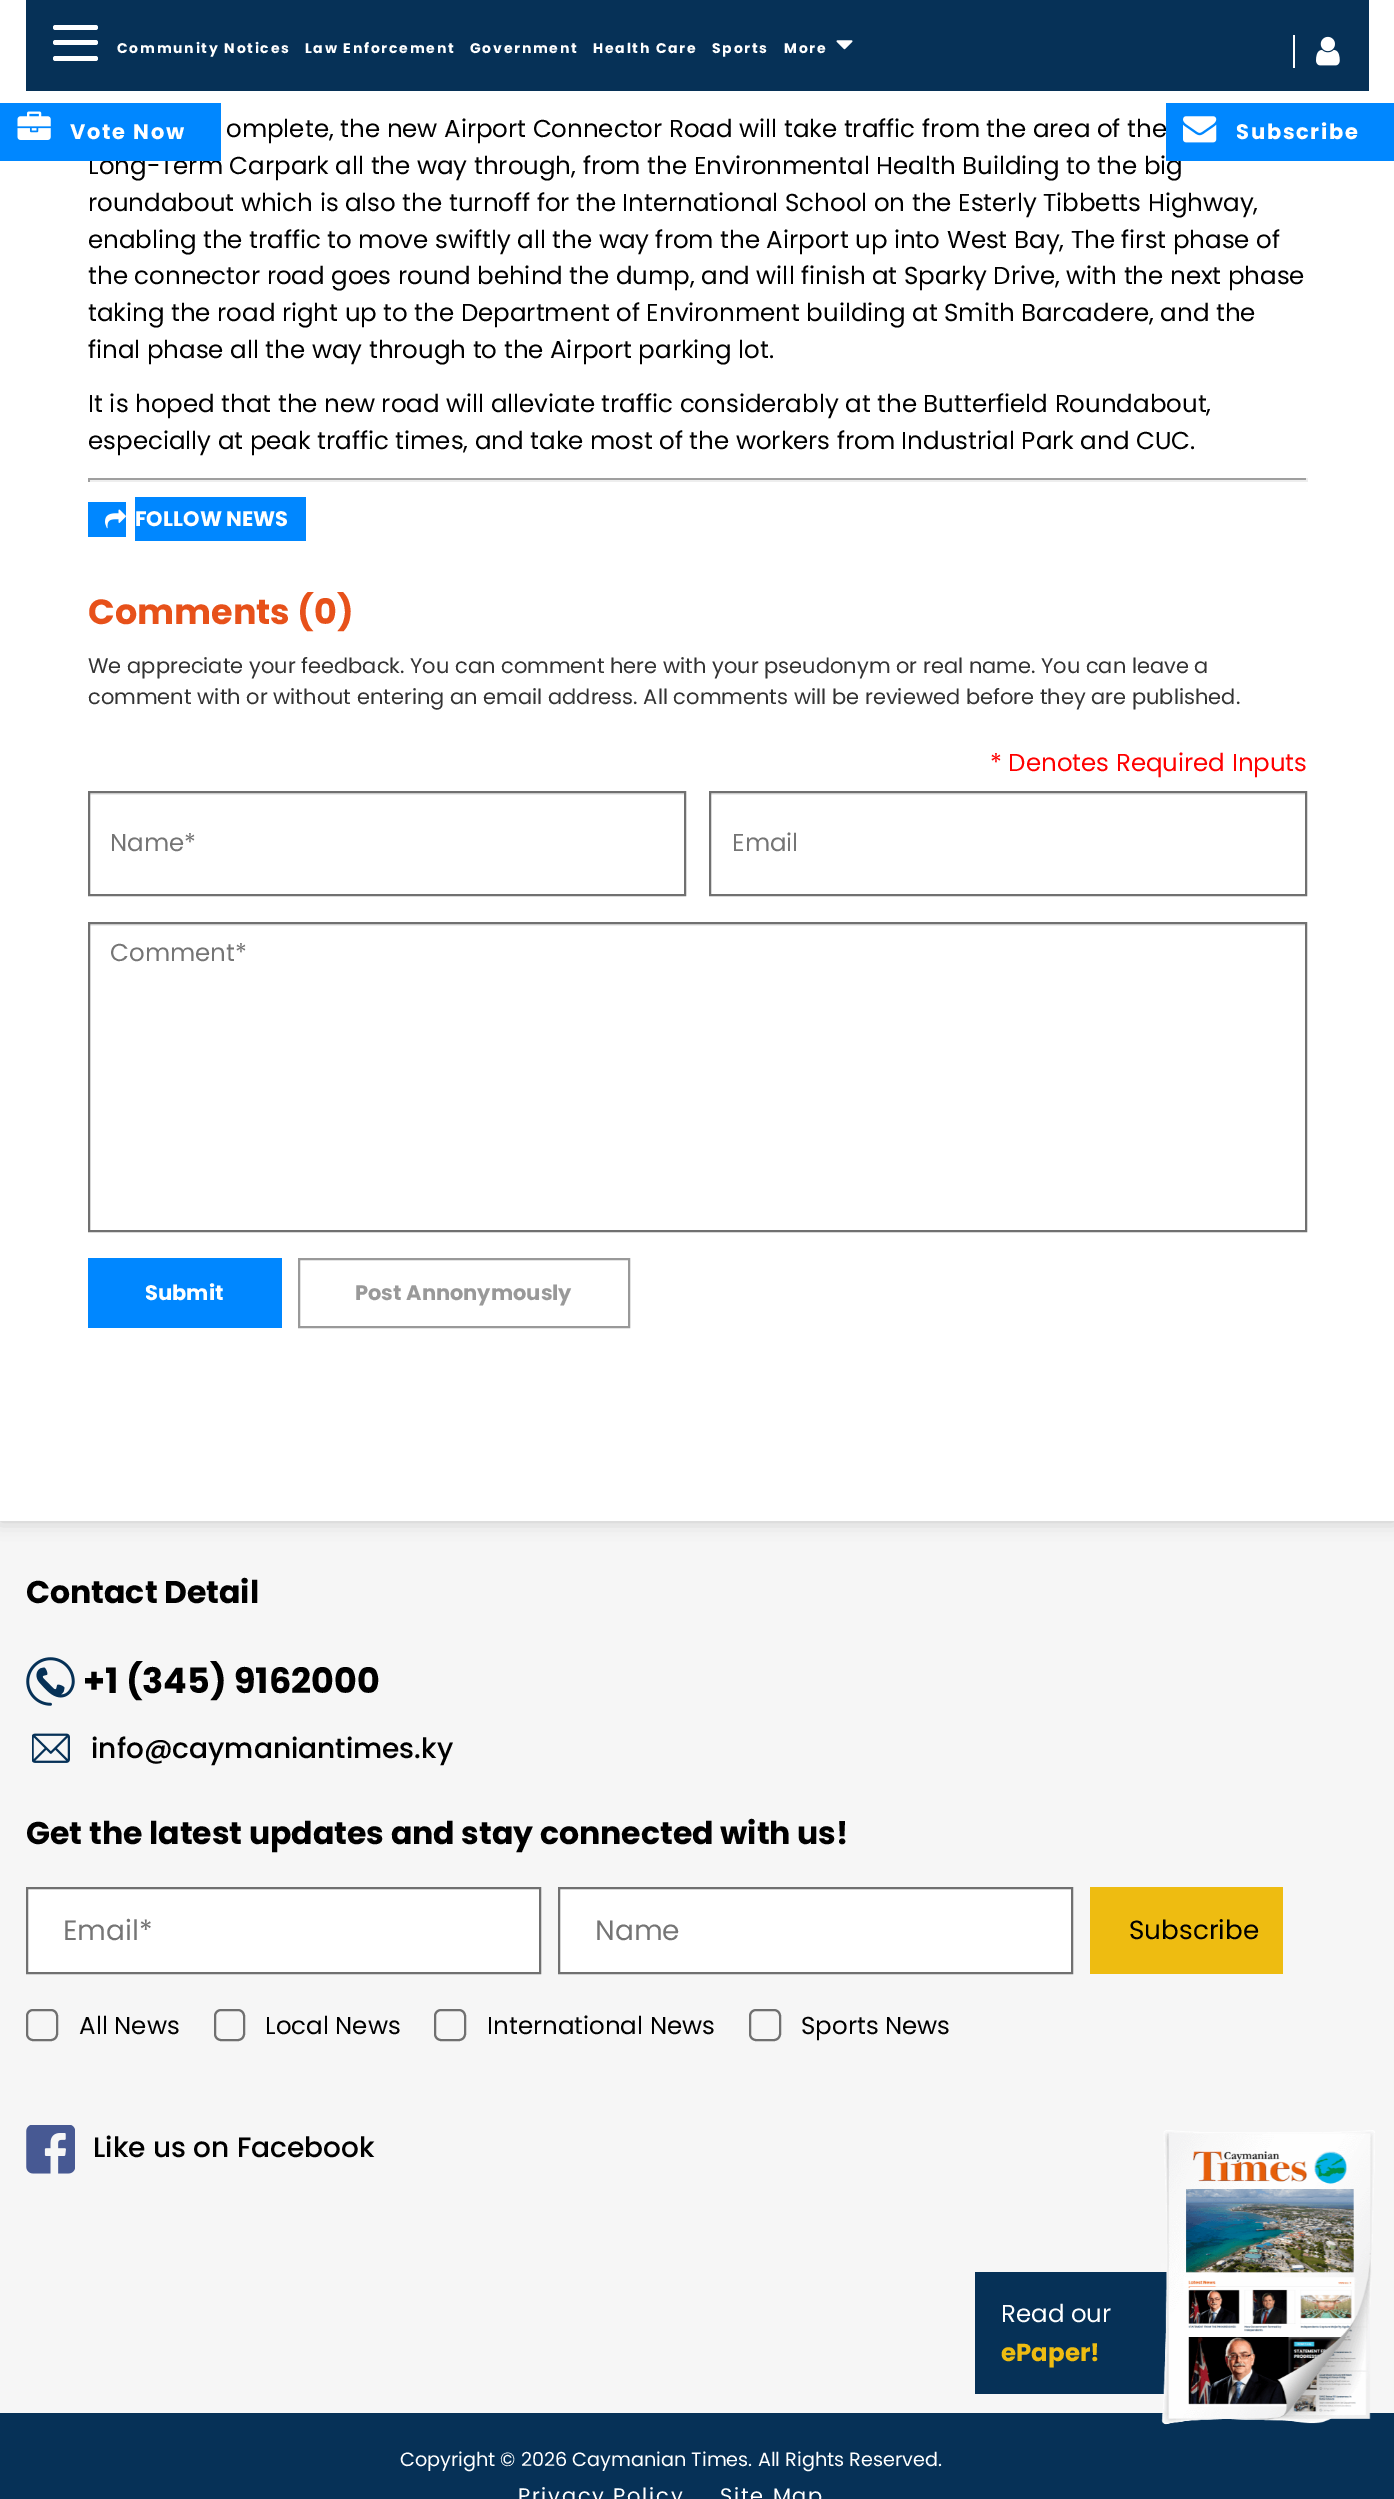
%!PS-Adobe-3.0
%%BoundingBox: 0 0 1394 2499
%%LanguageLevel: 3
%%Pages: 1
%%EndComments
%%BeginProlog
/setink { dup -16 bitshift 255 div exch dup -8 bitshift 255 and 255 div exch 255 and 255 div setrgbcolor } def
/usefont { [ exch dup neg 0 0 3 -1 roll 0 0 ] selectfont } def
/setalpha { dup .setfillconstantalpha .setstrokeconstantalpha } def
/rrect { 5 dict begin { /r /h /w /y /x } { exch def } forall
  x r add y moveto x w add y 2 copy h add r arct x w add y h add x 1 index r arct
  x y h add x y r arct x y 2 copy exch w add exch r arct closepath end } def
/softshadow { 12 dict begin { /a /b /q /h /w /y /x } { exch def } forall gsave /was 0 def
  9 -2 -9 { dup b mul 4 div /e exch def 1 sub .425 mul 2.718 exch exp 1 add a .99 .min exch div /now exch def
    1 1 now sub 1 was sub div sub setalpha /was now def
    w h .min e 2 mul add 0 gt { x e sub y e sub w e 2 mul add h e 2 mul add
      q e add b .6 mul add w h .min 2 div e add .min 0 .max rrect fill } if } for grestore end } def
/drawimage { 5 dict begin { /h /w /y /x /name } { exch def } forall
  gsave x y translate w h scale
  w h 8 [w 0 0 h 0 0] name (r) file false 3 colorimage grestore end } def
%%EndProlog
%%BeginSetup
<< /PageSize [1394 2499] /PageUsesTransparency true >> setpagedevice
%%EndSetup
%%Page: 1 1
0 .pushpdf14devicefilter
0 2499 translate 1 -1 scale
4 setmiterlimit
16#FFFFFF setink
0 0 1394 2499 rectfill
16#F6F6F6 setink
0 1521 1394 892 rectfill
gsave
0 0 moveto 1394 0 lineto 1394 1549 lineto 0 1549 lineto closepath 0 -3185 moveto 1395 -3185 lineto 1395 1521 lineto 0 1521 lineto closepath eoclip newpath
16#000000 setink
0 -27 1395 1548 0 9 0.2 softshadow
grestore
16#063157 setink
26 0 1343 91 rectfill
16#FFFFFF setink
53 40 45 5 2.5 rrect fill
53 25 45 5 2.5 rrect fill
53 56 45 5 2.5 rrect fill
/Poppins-Bold 14 usefont
117 53 moveto 1.75 0 (Community Notices) ashow
305 53 moveto 1.75 0 (Law Enforcement) ashow
470 53 moveto 1.75 0 (Government) ashow
593 53 moveto 1.75 0 (Health Care) ashow
712 53 moveto 1.75 0 (Sports) ashow
784 53 moveto 1.75 0 (More) ashow
(img1.raw) 836 40 17 10 drawimage
1293 35 2 33 rectfill
(img2.raw) 1316 36 24 30 drawimage
/Poppins-Regular 24.5 usefont
16#000000 setink
88 174 moveto (Long-Term Carpark all the way through, from the Environmental Health Building to the big) show
16#0087FF setink
0 103 221 58 rectfill
(img3.raw) 17 111 34 29 drawimage
/Poppins-Bold 21 usefont
16#FFFFFF setink
70 139 moveto 1.75 0 (Vote Now) ashow
/Poppins-Regular 24.5 usefont
16#000000 setink
226 137 moveto (omplete, the new Airport Connector Road will take traffic from the area of the) show
16#0087FF setink
1166 103 228 58 rectfill
(img4.raw) 1183 116 34 27 drawimage
/Poppins-Bold 21 usefont
16#FFFFFF setink
1236 139 moveto 1.75 0 (Subscribe) ashow
/Poppins-Regular 24.5 usefont
16#000000 setink
[
    [(roundabout which is also the turnoff for the International School on the Esterly Tibbetts Highway,) 88 211]
    [(enabling the traffic to move swiftly all the way from the Airport up into West Bay, The first phase of) 88 248]
    [(the connector road goes round behind the dump, and will finish at Sparky Drive, with the next phase) 88 284]
    [(taking the road right up to the Department of Environment building at Smith Barcadere, and the) 88 321]
    [(final phase all the way through to the Airport parking lot.) 88 358]
    [(It is hoped that the new road will alleviate traffic considerably at the Butterfield Roundabout,) 88 412]
    [(especially at peak traffic times, and take most of the workers from Industrial Park and CUC.) 88 449]
] { aload pop moveto show } forall
[
    [88 478 1219 2 16#9F9F9F]
    [1306 478 2 4 16#EEEEEE]
    [88 480 1219 2 16#EEEEEE]
    [88 478 2 4 16#9F9F9F]
    [88 502 38 35 16#0087FF]
    [135 497 171 44 16#0087FF]
] { aload pop setink rectfill } forall
(img5.raw) 105 509 21 20 drawimage
/Poppins-Bold 21 usefont
16#FFFFFF setink
135 526 moveto (FOLLOW NEWS) show
/Poppins-Bold 35 usefont
16#E7511A setink
88 624 moveto (Comments \(0\)) show
/Poppins-Regular 21 usefont
16#333333 setink
88 673 moveto (We appreciate your feedback. You can comment here with your pseudonym or real name. You can leave a) show
88 704 moveto (comment with or without entering an email address. All comments will be reviewed before they are published.) show
/Poppins-Regular 24.5 usefont
16#FF0000 setink
990 771 moveto (* Denotes Required Inputs) show
16#ECECEC setink
89 793 595 2 rectfill
16#707070 setink
2 setlinewidth
89 792 596 103 rectstroke
16#757575 setink
110 851 moveto (Name*) show
16#ECECEC setink
711 793 595 2 rectfill
16#707070 setink
710 792 596 103 rectstroke
16#757575 setink
732 851 moveto (Email) show
16#ECECEC setink
89 924 1217 2 rectfill
16#707070 setink
89 923 1217 308 rectstroke
16#757575 setink
110 961 moveto (Comment*) show
16#0087FF setink
88 1258 194 70 rectfill
/Poppins-Bold 21 usefont
16#FFFFFF setink
145 1300 moveto (Submit) show
16#999999 setink
299 1259 330 68 rectstroke
355 1300 moveto (Post Annonymously) show
/Poppins-Bold 31.5 usefont
16#000000 setink
26 1603 moveto (Contact Detail) show
(img6.raw) 26 1657 49 49 drawimage
/Poppins-Bold 35 usefont
83 1693 moveto (+1 \(345\) 9162000) show
(img7.raw) 32 1733 38 30 drawimage
/Poppins-Medium 28 usefont
91 1758 moveto (info@caymaniantimes.ky) show
/Poppins-Bold 31.5 usefont
26 1844 moveto (Get the latest updates and stay connected with us!) show
16#FFFFFF setink
27 1888 moveto 540 1888 lineto 540 1973 lineto 27 1973 lineto closepath gsave fill grestore
16#707070 setink
stroke
/Poppins-Regular 28 usefont
16#757575 setink
63 1940 moveto (Email*) show
16#FFFFFF setink
559 1888 moveto 1072 1888 lineto 1072 1973 lineto 559 1973 lineto closepath gsave fill grestore
16#707070 setink
stroke
16#757575 setink
595 1940 moveto (Name) show
16#707070 setink
27 2010 30 30 6 rrect stroke
/Poppins-Regular 24.5 usefont
16#000000 setink
79 2034 moveto (All News) show
16#707070 setink
215 2010 29 30 6 rrect stroke
16#000000 setink
265 2034 moveto (Local News) show
16#707070 setink
435 2010 30 30 6 rrect stroke
16#000000 setink
487 2034 moveto (International News) show
16#707070 setink
750 2010 30 30 6 rrect stroke
16#000000 setink
801 2034 moveto (Sports News) show
16#EEBC11 setink
1090 1887 193 87 rectfill
/Poppins-Regular 26.25 usefont
16#000000 setink
1129 1939 moveto (Subscribe) show
(img8.raw) 26 2125 49 49 drawimage
/Poppins-Medium 28 usefont
93 2157 moveto (Like us on Facebook) show
16#063157 setink
975 2272 192 122 rectfill
/Poppins-Regular 24.5 usefont
16#FFFFFF setink
1001 2322 moveto (Read our) show
/Poppins-Bold 24.5 usefont
16#EEBC11 setink
1001 2361 moveto (ePaper!) show
16#063157 setink
0 2413 1394 86 rectfill
(img9.raw) 1161 2130 214 295 drawimage
/Poppins-Regular 19.25 usefont
16#FFFFFF setink
400 2466 moveto (Copyright © 2026 Caymanian Times. All Rights Reserved.) show
/Poppins-Regular 21 usefont
518 2503 moveto 1.75 0 (Privacy Policy) ashow
720 2503 moveto 1.75 0 (Site Map) ashow
.poppdf14devicefilter showpage
%%EOF
